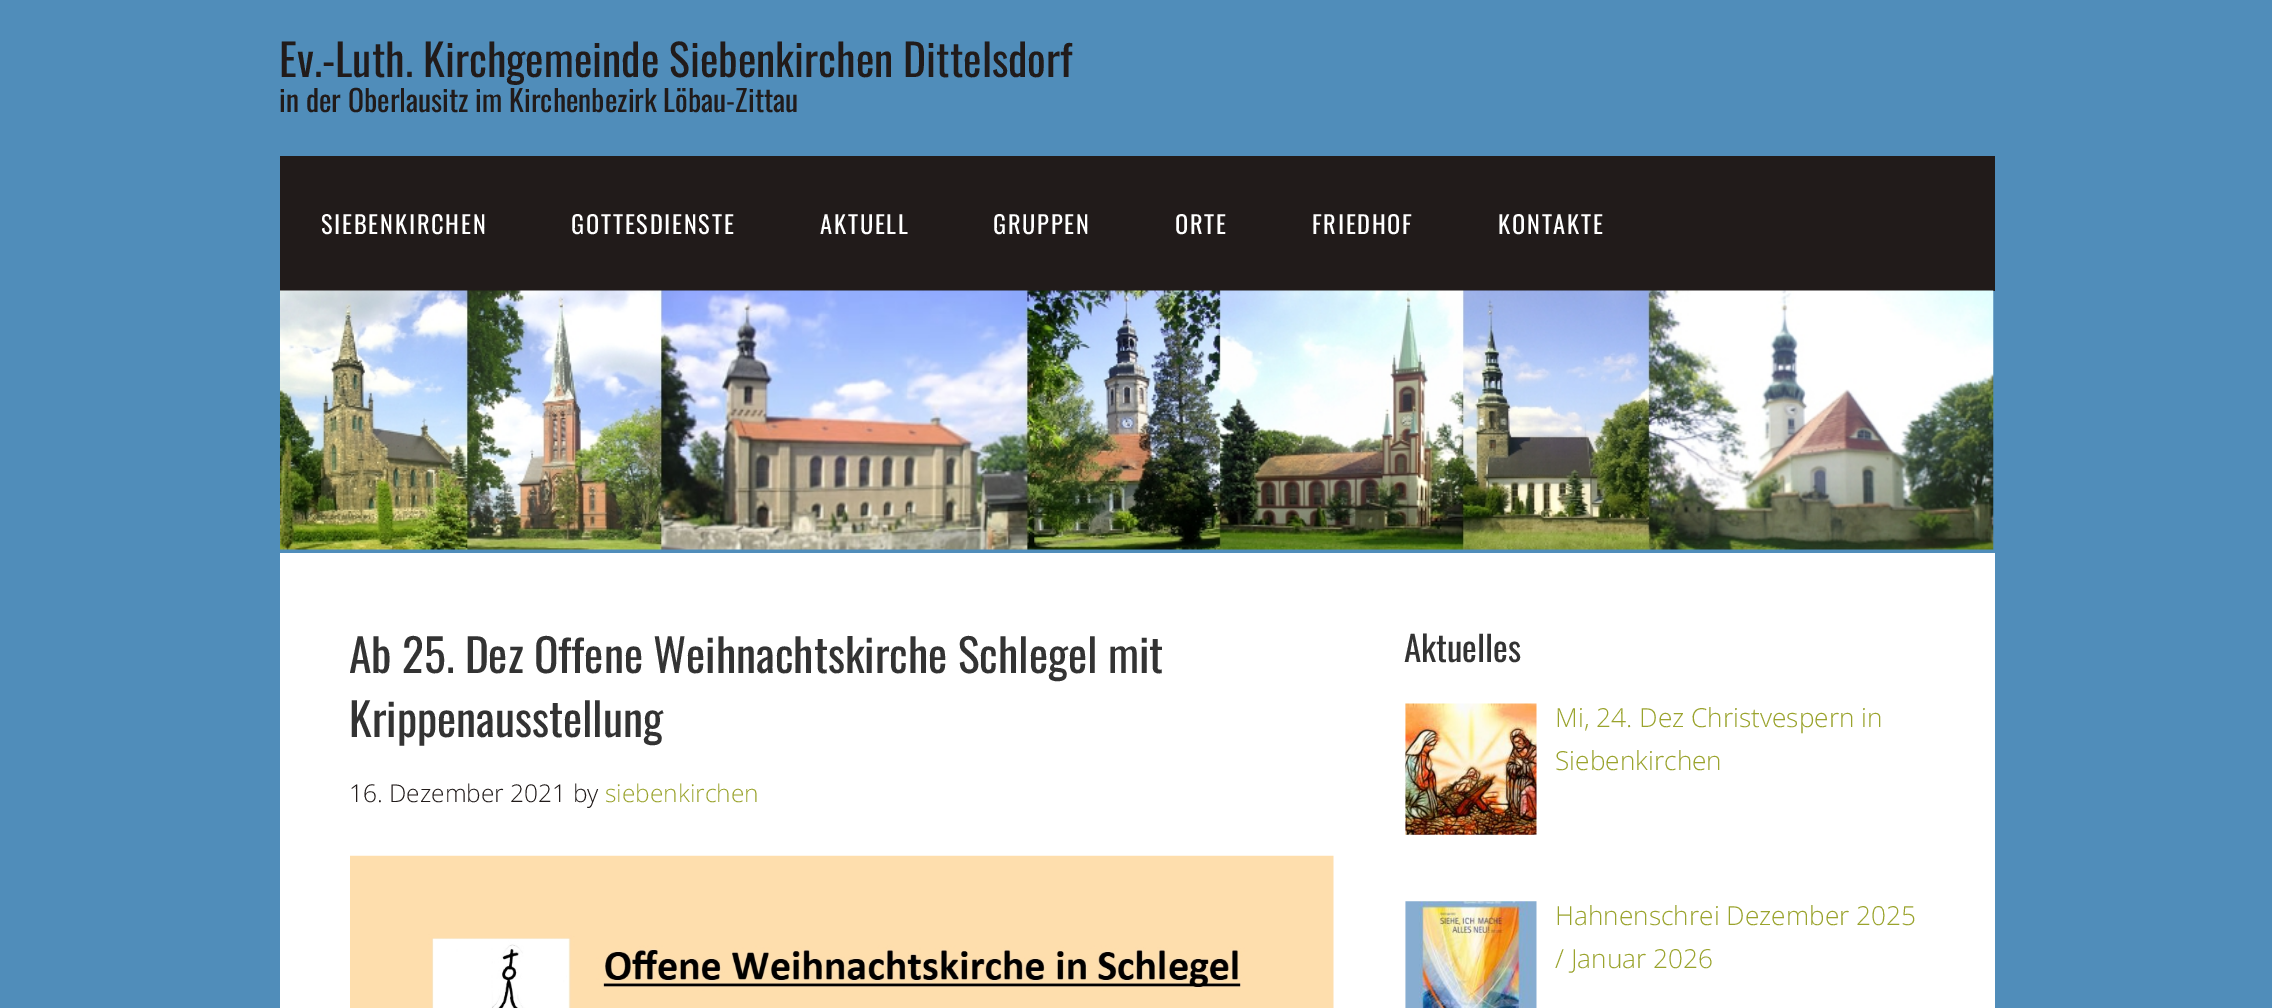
%!PS-Adobe-3.0
%%BoundingBox: 0 0 2272 1008
%%LanguageLevel: 3
%%Pages: 1
%%EndComments
%%BeginProlog
/setink { dup -16 bitshift 255 div exch dup -8 bitshift 255 and 255 div exch 255 and 255 div setrgbcolor } def
/usefont { [ exch dup neg 0 0 3 -1 roll 0 0 ] selectfont } def
/drawimage { 5 dict begin { /h /w /y /x /name } { exch def } forall
  gsave x y translate w h scale
  w h 8 [w 0 0 h 0 0] name (r) file false 3 colorimage grestore end } def
%%EndProlog
%%BeginSetup
<< /PageSize [2272 1008] >> setpagedevice
%%EndSetup
%%Page: 1 1
0 1008 translate 1 -1 scale
4 setmiterlimit
16#508DBA setink
0 0 2272 1008 rectfill
/Oswald-Regular 43.75 usefont
16#211B1A setink
279 77 moveto (Ev.-Luth. Kirchgemeinde Siebenkirchen Dittelsdorf) show
/Oswald-Regular 29.75 usefont
279 112 moveto (in der Oberlausitz im Kirchenbezirk Löbau-Zittau) show
280 156 1715 135 rectfill
/Oswald-Regular 24.5 usefont
16#FFFFFF setink
321 234 moveto 1.75 0 (SIEBENKIRCHEN) ashow
571 234 moveto 1.75 0 (GOTTESDIENSTE) ashow
820 234 moveto 1.75 0 (AKTUELL) ashow
993 234 moveto 1.75 0 (GRUPPEN) ashow
1175 234 moveto 1.75 0 (ORTE) ashow
1312 234 moveto 1.75 0 (FRIEDHOF) ashow
1498 234 moveto 1.75 0 (KONTAKTE) ashow
(img1.raw) 280 290 1714 260 drawimage
280 553 1715 455 rectfill
/Oswald-Regular 45.5 usefont
16#333333 setink
349 673 moveto (Ab 25. Dez Offene Weihnachtskirche Schlegel mit) show
349 737 moveto (Krippenausstellung) show
/OpenSans-Light 24.5 usefont
16#211B1A setink
349 802 moveto (16. Dezember 2021 by) show
16#9AA32C setink
605 802 moveto (siebenkirchen) show
(img2.raw) 350 855 984 153 drawimage
/Oswald-Regular 35 usefont
16#333333 setink
1404 662 moveto (Aktuelles) show
(img3.raw) 1405 703 132 132 drawimage
/OpenSans-Light 26.25 usefont
16#9AA32C setink
1555 727 moveto (Mi, 24. Dez Christvespern in) show
1555 770 moveto (Siebenkirchen) show
(img4.raw) 1405 901 132 107 drawimage
1555 925 moveto (Hahnenschrei Dezember 2025) show
1555 968 moveto (/ Januar 2026) show
showpage
%%EOF
